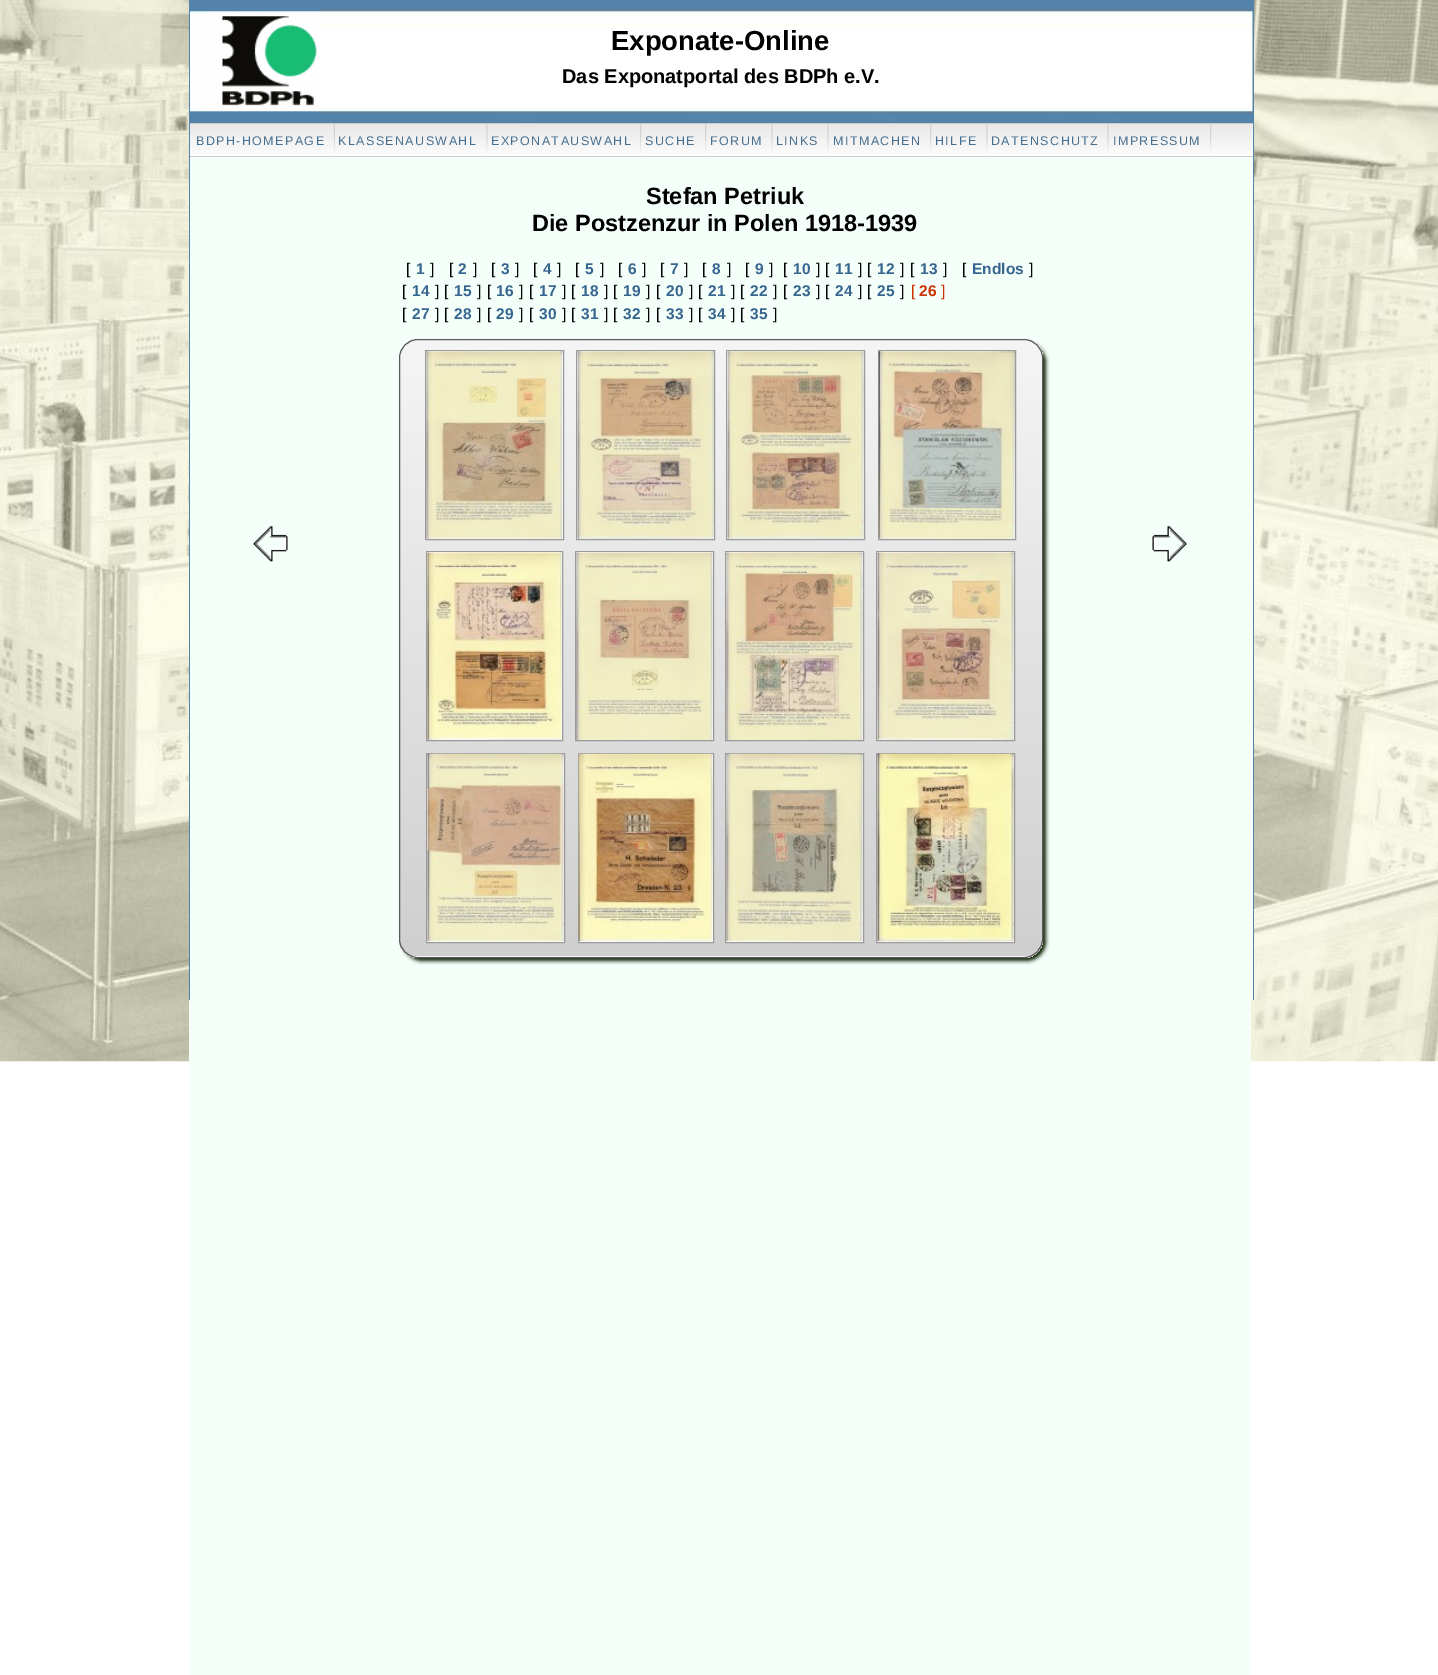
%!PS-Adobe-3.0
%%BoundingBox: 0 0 1438 1675
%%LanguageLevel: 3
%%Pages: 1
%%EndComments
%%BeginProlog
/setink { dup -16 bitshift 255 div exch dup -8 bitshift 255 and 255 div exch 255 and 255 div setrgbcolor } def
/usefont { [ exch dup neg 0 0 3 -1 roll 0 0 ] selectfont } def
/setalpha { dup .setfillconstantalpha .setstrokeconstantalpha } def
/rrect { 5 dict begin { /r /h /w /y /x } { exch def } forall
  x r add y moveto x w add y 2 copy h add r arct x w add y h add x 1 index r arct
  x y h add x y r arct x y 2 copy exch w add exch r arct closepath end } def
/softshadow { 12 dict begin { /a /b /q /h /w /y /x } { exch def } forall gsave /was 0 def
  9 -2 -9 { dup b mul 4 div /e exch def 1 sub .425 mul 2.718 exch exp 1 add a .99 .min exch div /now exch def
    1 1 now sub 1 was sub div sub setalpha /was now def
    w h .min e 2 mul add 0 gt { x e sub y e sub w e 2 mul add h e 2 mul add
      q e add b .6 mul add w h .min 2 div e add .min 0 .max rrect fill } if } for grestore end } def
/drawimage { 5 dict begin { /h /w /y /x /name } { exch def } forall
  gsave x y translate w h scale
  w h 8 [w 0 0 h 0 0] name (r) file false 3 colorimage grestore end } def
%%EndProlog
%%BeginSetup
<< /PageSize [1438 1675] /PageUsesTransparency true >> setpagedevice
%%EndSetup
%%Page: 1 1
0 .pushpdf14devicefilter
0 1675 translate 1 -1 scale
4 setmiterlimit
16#FFFFFF setink
0 0 1438 1675 rectfill
(img1.raw) 0 0 1438 1062 drawimage
[
    [189 1000 1062 675 16#F5FFFA]
    [190 124 1063 876 16#F5FFFA]
    [1253 0 1 1000 16#5383AA]
    [189 0 1 1000 16#5383AA]
    [190 0 1063 123 16#5383AA]
] { aload pop setink rectfill } forall
(img2.raw) 190 8 1063 113 drawimage
/LiberationSans-Bold 27.5 usefont
16#000000 setink
611 50 moveto (Exponate-Online) show
/LiberationSans-Bold 20 usefont
562 83 moveto (Das Exponatportal des BDPh e.V.) show
(img3.raw) 190 124 1063 32 drawimage
16#CDCDCD setink
190 123 1063 1 rectfill
190 156 1063 1 rectfill
(img4.raw) 333 124 2 33 drawimage
/LiberationSans-Regular 12.5 usefont
16#466F8F setink
196 145 moveto 1.4 0 (BDPH-HOMEPAGE) ashow
(img5.raw) 486 124 2 33 drawimage
338 145 moveto 1.4 0 (KLASSENAUSWAHL) ashow
(img6.raw) 640 124 2 33 drawimage
491 145 moveto 1.4 0 (EXPONATAUSWAHL) ashow
(img6.raw) 705 124 2 33 drawimage
645 145 moveto 1.4 0 (SUCHE) ashow
(img5.raw) 771 124 2 33 drawimage
710 145 moveto 1.4 0 (FORUM) ashow
(img7.raw) 827 124 2 33 drawimage
776 145 moveto 1.4 0 (LINKS) ashow
(img6.raw) 930 124 2 33 drawimage
833 145 moveto 1.4 0 (MITMACHEN) ashow
(img5.raw) 986 124 2 33 drawimage
935 145 moveto 1.4 0 (HILFE) ashow
(img7.raw) 1107 124 2 33 drawimage
991 145 moveto 1.4 0 (DATENSCHUTZ) ashow
(img6.raw) 1210 124 2 33 drawimage
1113 145 moveto 1.4 0 (IMPRESSUM) ashow
/LiberationSans-Bold 23.5 usefont
16#000000 setink
646 204 moveto (Stefan Petriuk) show
532 231 moveto (Die Postzenzur in Polen 1918-1939) show
/LiberationSans-Regular 15.5 usefont
406 274 moveto ([) show
/LiberationSans-Bold 15.5 usefont
16#36668F setink
416 274 moveto (1) show
/LiberationSans-Regular 15.5 usefont
16#000000 setink
430 274 moveto (]) show
449 274 moveto ([) show
/LiberationSans-Bold 15.5 usefont
16#36668F setink
458 274 moveto (2) show
/LiberationSans-Regular 15.5 usefont
16#000000 setink
473 274 moveto (]) show
491 274 moveto ([) show
/LiberationSans-Bold 15.5 usefont
16#36668F setink
501 274 moveto (3) show
/LiberationSans-Regular 15.5 usefont
16#000000 setink
515 274 moveto (]) show
533 274 moveto ([) show
/LiberationSans-Bold 15.5 usefont
16#36668F setink
543 274 moveto (4) show
/LiberationSans-Regular 15.5 usefont
16#000000 setink
557 274 moveto (]) show
575 274 moveto ([) show
/LiberationSans-Bold 15.5 usefont
16#36668F setink
585 274 moveto (5) show
/LiberationSans-Regular 15.5 usefont
16#000000 setink
600 274 moveto (]) show
618 274 moveto ([) show
/LiberationSans-Bold 15.5 usefont
16#36668F setink
628 274 moveto (6) show
/LiberationSans-Regular 15.5 usefont
16#000000 setink
642 274 moveto (]) show
660 274 moveto ([) show
/LiberationSans-Bold 15.5 usefont
16#36668F setink
670 274 moveto (7) show
/LiberationSans-Regular 15.5 usefont
16#000000 setink
684 274 moveto (]) show
702 274 moveto ([) show
/LiberationSans-Bold 15.5 usefont
16#36668F setink
712 274 moveto (8) show
/LiberationSans-Regular 15.5 usefont
16#000000 setink
727 274 moveto (]) show
745 274 moveto ([) show
/LiberationSans-Bold 15.5 usefont
16#36668F setink
755 274 moveto (9) show
/LiberationSans-Regular 15.5 usefont
16#000000 setink
769 274 moveto (]) show
783 274 moveto ([) show
/LiberationSans-Bold 15.5 usefont
16#36668F setink
793 274 moveto (10) show
/LiberationSans-Regular 15.5 usefont
16#000000 setink
816 274 moveto (]) show
825 274 moveto ([) show
/LiberationSans-Bold 15.5 usefont
16#36668F setink
835 274 moveto (11) show
/LiberationSans-Regular 15.5 usefont
16#000000 setink
858 274 moveto (]) show
867 274 moveto ([) show
/LiberationSans-Bold 15.5 usefont
16#36668F setink
877 274 moveto (12) show
/LiberationSans-Regular 15.5 usefont
16#000000 setink
900 274 moveto (]) show
910 274 moveto ([) show
/LiberationSans-Bold 15.5 usefont
16#36668F setink
920 274 moveto (13) show
/LiberationSans-Regular 15.5 usefont
16#000000 setink
943 274 moveto (]) show
962 274 moveto ([) show
/LiberationSans-Bold 15.5 usefont
16#36668F setink
972 274 moveto (Endlos) show
/LiberationSans-Regular 15.5 usefont
16#000000 setink
1029 274 moveto (]) show
402 296 moveto ([) show
/LiberationSans-Bold 15.5 usefont
16#36668F setink
412 296 moveto (14) show
/LiberationSans-Regular 15.5 usefont
16#000000 setink
435 296 moveto (]) show
444 296 moveto ([) show
/LiberationSans-Bold 15.5 usefont
16#36668F setink
454 296 moveto (15) show
/LiberationSans-Regular 15.5 usefont
16#000000 setink
477 296 moveto (]) show
487 296 moveto ([) show
/LiberationSans-Bold 15.5 usefont
16#36668F setink
496 296 moveto (16) show
/LiberationSans-Regular 15.5 usefont
16#000000 setink
519 296 moveto (]) show
529 296 moveto ([) show
/LiberationSans-Bold 15.5 usefont
16#36668F setink
539 296 moveto (17) show
/LiberationSans-Regular 15.5 usefont
16#000000 setink
562 296 moveto (]) show
571 296 moveto ([) show
/LiberationSans-Bold 15.5 usefont
16#36668F setink
581 296 moveto (18) show
/LiberationSans-Regular 15.5 usefont
16#000000 setink
604 296 moveto (]) show
613 296 moveto ([) show
/LiberationSans-Bold 15.5 usefont
16#36668F setink
623 296 moveto (19) show
/LiberationSans-Regular 15.5 usefont
16#000000 setink
646 296 moveto (]) show
656 296 moveto ([) show
/LiberationSans-Bold 15.5 usefont
16#36668F setink
666 296 moveto (20) show
/LiberationSans-Regular 15.5 usefont
16#000000 setink
689 296 moveto (]) show
698 296 moveto ([) show
/LiberationSans-Bold 15.5 usefont
16#36668F setink
708 296 moveto (21) show
/LiberationSans-Regular 15.5 usefont
16#000000 setink
731 296 moveto (]) show
740 296 moveto ([) show
/LiberationSans-Bold 15.5 usefont
16#36668F setink
750 296 moveto (22) show
/LiberationSans-Regular 15.5 usefont
16#000000 setink
773 296 moveto (]) show
783 296 moveto ([) show
/LiberationSans-Bold 15.5 usefont
16#36668F setink
793 296 moveto (23) show
/LiberationSans-Regular 15.5 usefont
16#000000 setink
816 296 moveto (]) show
825 296 moveto ([) show
/LiberationSans-Bold 15.5 usefont
16#36668F setink
835 296 moveto (24) show
/LiberationSans-Regular 15.5 usefont
16#000000 setink
858 296 moveto (]) show
867 296 moveto ([) show
/LiberationSans-Bold 15.5 usefont
16#36668F setink
877 296 moveto (25) show
/LiberationSans-Regular 15.5 usefont
16#000000 setink
900 296 moveto (]) show
16#CC3300 setink
911 296 moveto ([) show
/LiberationSans-Bold 15.5 usefont
919 296 moveto (26) show
/LiberationSans-Regular 15.5 usefont
941 296 moveto (]) show
16#000000 setink
402 319 moveto ([) show
/LiberationSans-Bold 15.5 usefont
16#36668F setink
412 319 moveto (27) show
/LiberationSans-Regular 15.5 usefont
16#000000 setink
435 319 moveto (]) show
444 319 moveto ([) show
/LiberationSans-Bold 15.5 usefont
16#36668F setink
454 319 moveto (28) show
/LiberationSans-Regular 15.5 usefont
16#000000 setink
477 319 moveto (]) show
487 319 moveto ([) show
/LiberationSans-Bold 15.5 usefont
16#36668F setink
496 319 moveto (29) show
/LiberationSans-Regular 15.5 usefont
16#000000 setink
519 319 moveto (]) show
529 319 moveto ([) show
/LiberationSans-Bold 15.5 usefont
16#36668F setink
539 319 moveto (30) show
/LiberationSans-Regular 15.5 usefont
16#000000 setink
562 319 moveto (]) show
571 319 moveto ([) show
/LiberationSans-Bold 15.5 usefont
16#36668F setink
581 319 moveto (31) show
/LiberationSans-Regular 15.5 usefont
16#000000 setink
604 319 moveto (]) show
613 319 moveto ([) show
/LiberationSans-Bold 15.5 usefont
16#36668F setink
623 319 moveto (32) show
/LiberationSans-Regular 15.5 usefont
16#000000 setink
646 319 moveto (]) show
656 319 moveto ([) show
/LiberationSans-Bold 15.5 usefont
16#36668F setink
666 319 moveto (33) show
/LiberationSans-Regular 15.5 usefont
16#000000 setink
689 319 moveto (]) show
698 319 moveto ([) show
/LiberationSans-Bold 15.5 usefont
16#36668F setink
708 319 moveto (34) show
/LiberationSans-Regular 15.5 usefont
16#000000 setink
731 319 moveto (]) show
740 319 moveto ([) show
/LiberationSans-Bold 15.5 usefont
16#36668F setink
750 319 moveto (35) show
/LiberationSans-Regular 15.5 usefont
16#000000 setink
773 319 moveto (]) show
16#0C2202 setink
403 343 643 618 19 2 1 softshadow
gsave
399 339 644 619 19 rrect clip newpath
gsave 399 340 moveto 1043 340 lineto 1043 956 lineto 399 956 lineto closepath clip newpath
<< /ShadingType 2 /ColorSpace /DeviceRGB /Coords [400 340 400 956] /Extend [true true] /Function << /FunctionType 2 /Domain [0 1] /C0 [0.961 0.961 0.961] /C1 [0.812 0.812 0.812] /N 1 >> >> shfill grestore
gsave 409 956 moveto 1033 956 lineto 1033 958 lineto 409 958 lineto closepath clip newpath
<< /ShadingType 2 /ColorSpace /DeviceRGB /Coords [400 956 400 1573] /Extend [true true] /Function << /FunctionType 2 /Domain [0 1] /C0 [0.961 0.961 0.961] /C1 [0.812 0.812 0.812] /N 1 >> >> shfill grestore
grestore
16#5A5A5A setink
399.5 339.5 643 618 18.5 rrect stroke
16#FFFFFF setink
425.5 350.5 moveto 563.5 350.5 lineto 563.5 539.5 lineto 425.5 539.5 lineto closepath gsave fill grestore
16#9A9A9A setink
stroke
16#FFFFFF setink
576.5 350.5 moveto 714.5 350.5 lineto 714.5 539.5 lineto 576.5 539.5 lineto closepath gsave fill grestore
16#9A9A9A setink
stroke
16#FFFFFF setink
726.5 350.5 moveto 864.5 350.5 lineto 864.5 539.5 lineto 726.5 539.5 lineto closepath gsave fill grestore
16#9A9A9A setink
stroke
878.5 350.5 137 189 rectstroke
(img8.raw) 426 351 137 188 drawimage
(img9.raw) 577 351 137 188 drawimage
(img10.raw) 727 351 137 188 drawimage
(img11.raw) 878 351 137 188 drawimage
16#FFFFFF setink
426.5 551.5 moveto 562.5 551.5 lineto 562.5 740.5 lineto 426.5 740.5 lineto closepath gsave fill grestore
16#9A9A9A setink
stroke
16#FFFFFF setink
575.5 551.5 moveto 713.5 551.5 lineto 713.5 740.5 lineto 575.5 740.5 lineto closepath gsave fill grestore
16#9A9A9A setink
stroke
16#FFFFFF setink
725.5 551.5 moveto 863.5 551.5 lineto 863.5 740.5 lineto 725.5 740.5 lineto closepath gsave fill grestore
16#9A9A9A setink
stroke
16#FFFFFF setink
876.5 551.5 moveto 1014.5 551.5 lineto 1014.5 740.5 lineto 876.5 740.5 lineto closepath gsave fill grestore
16#9A9A9A setink
stroke
(img12.raw) 427 552 135 188 drawimage
(img13.raw) 576 552 137 188 drawimage
(img14.raw) 726 552 137 188 drawimage
(img15.raw) 877 552 137 188 drawimage
16#FFFFFF setink
426.5 753.5 moveto 564.5 753.5 lineto 564.5 942.5 lineto 426.5 942.5 lineto closepath gsave fill grestore
16#9A9A9A setink
stroke
(img16.raw) 427 753 137 189 drawimage
16#FFFFFF setink
578.5 753.5 moveto 713.5 753.5 lineto 713.5 942.5 lineto 578.5 942.5 lineto closepath gsave fill grestore
16#9A9A9A setink
stroke
(img17.raw) 578 753 135 189 drawimage
16#FFFFFF setink
725.5 753.5 moveto 863.5 753.5 lineto 863.5 942.5 lineto 725.5 942.5 lineto closepath gsave fill grestore
16#9A9A9A setink
stroke
(img18.raw) 726 753 137 189 drawimage
16#FFFFFF setink
876.5 753.5 moveto 1014.5 753.5 lineto 1014.5 942.5 lineto 876.5 942.5 lineto closepath gsave fill grestore
16#9A9A9A setink
stroke
(img19.raw) 877 753 137 189 drawimage
(img20.raw) 253 526 35 36 drawimage
(img21.raw) 1152 526 35 36 drawimage
.poppdf14devicefilter showpage
%%EOF
